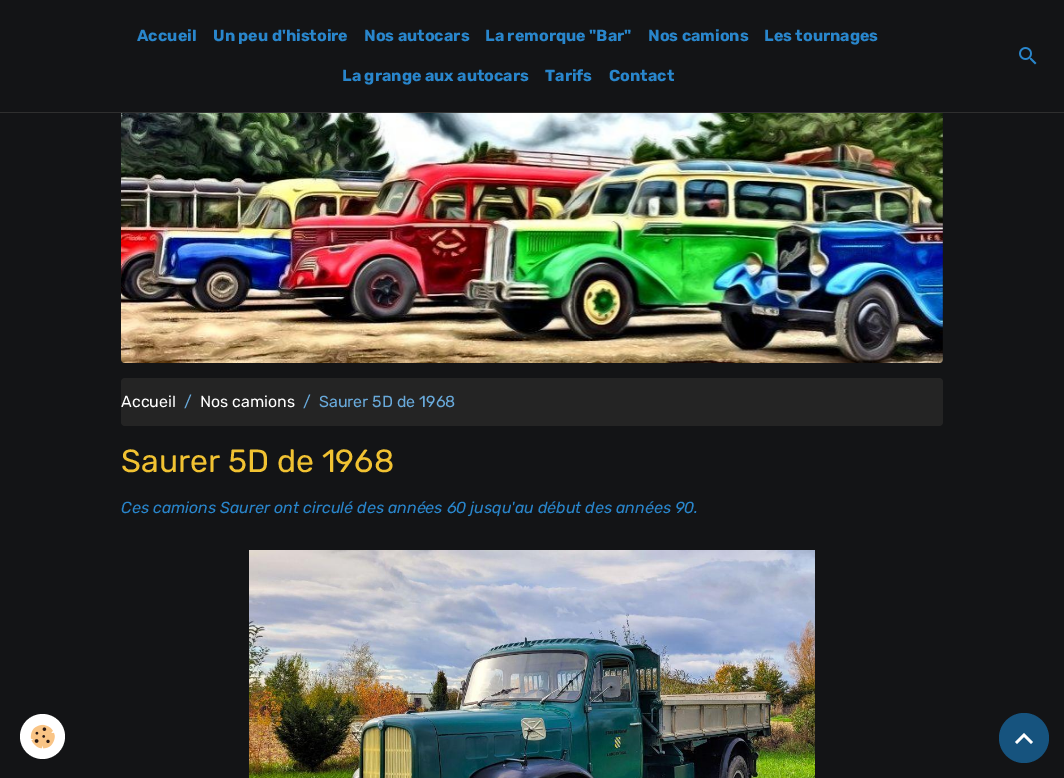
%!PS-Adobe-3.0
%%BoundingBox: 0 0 1064 778
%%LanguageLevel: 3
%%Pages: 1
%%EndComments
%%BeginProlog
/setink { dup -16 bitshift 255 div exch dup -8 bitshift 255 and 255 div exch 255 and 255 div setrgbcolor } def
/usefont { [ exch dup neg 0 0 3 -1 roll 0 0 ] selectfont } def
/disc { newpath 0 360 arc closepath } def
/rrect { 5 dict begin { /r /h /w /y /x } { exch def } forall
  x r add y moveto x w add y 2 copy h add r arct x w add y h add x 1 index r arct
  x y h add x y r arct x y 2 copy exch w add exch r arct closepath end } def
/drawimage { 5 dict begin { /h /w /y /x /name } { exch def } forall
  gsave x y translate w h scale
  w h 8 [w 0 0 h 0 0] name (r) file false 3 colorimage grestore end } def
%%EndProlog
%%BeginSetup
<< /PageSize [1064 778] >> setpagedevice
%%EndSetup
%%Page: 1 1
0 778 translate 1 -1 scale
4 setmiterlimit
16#131416 setink
0 0 1064 778 rectfill
16#2F2F2F setink
0 112 1064 1 rectfill
/Rubik-Bold 16 usefont
16#2986CC setink
[
    [(Accueil) 137 41]
    [(Un peu d'histoire) 213 41]
    [(Nos autocars) 364 41]
    [(La remorque "Bar") 485 41]
    [(Nos camions) 648 41]
    [(Les tournages) 764 41]
    [(La grange aux autocars) 342 81]
    [(Tarifs) 545 81]
    [(Contact) 609 81]
] { aload pop moveto show } forall
(img1.raw) 1019 47 18 18 drawimage
(img2.raw) 121 113 822 250 drawimage
16#242424 setink
121 378 822 48 4 rrect fill
/Rubik-Regular 16 usefont
16#FFFFFF setink
121 407 moveto (Accueil) show
16#69AADB setink
184 407 moveto (/) show
16#FFFFFF setink
200 407 moveto (Nos camions) show
16#69AADB setink
303 407 moveto (/) show
319 407 moveto (Saurer 5D de 1968) show
/Rubik-Regular 32 usefont
16#F1C232 setink
121 472 moveto (Saurer 5D de 1968) show
/Rubik-Italic 16 usefont
16#2986CC setink
121 513 moveto (Ces camions Saurer ont circulé des années 60 jusqu'au début des années 90.) show
(img3.raw) 249 550 566 228 drawimage
16#FFFFFF setink
42.5 736.5 22.5 disc fill
(img4.raw) 30 724 25 25 drawimage
16#16537E setink
1024 738 25 disc fill
16#FFFFFF setink
1024 733 moveto 1033 742 lineto 1031 744 lineto 1024 737 lineto 1017 744 lineto 1015 742 lineto closepath fill
showpage
%%EOF
